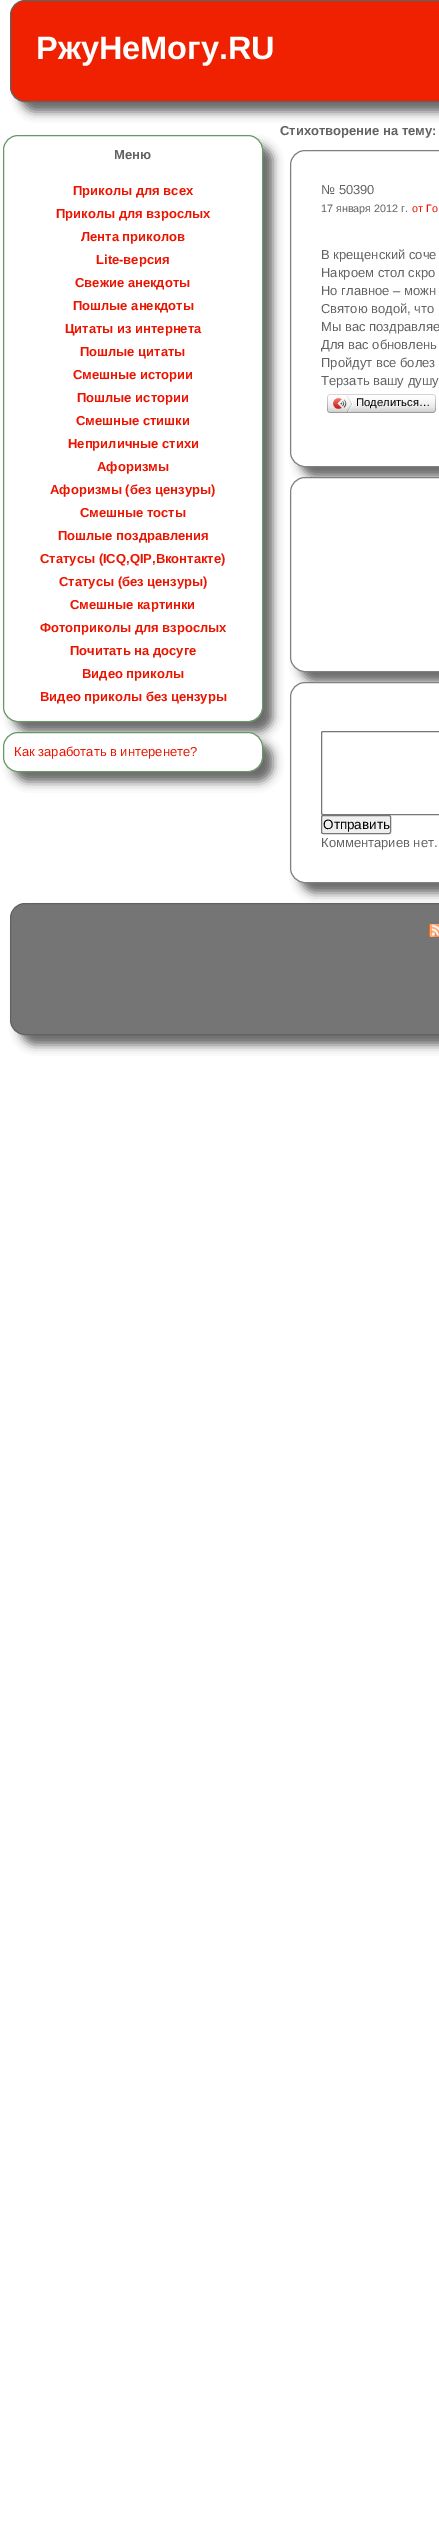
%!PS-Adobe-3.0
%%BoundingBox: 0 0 439 2541
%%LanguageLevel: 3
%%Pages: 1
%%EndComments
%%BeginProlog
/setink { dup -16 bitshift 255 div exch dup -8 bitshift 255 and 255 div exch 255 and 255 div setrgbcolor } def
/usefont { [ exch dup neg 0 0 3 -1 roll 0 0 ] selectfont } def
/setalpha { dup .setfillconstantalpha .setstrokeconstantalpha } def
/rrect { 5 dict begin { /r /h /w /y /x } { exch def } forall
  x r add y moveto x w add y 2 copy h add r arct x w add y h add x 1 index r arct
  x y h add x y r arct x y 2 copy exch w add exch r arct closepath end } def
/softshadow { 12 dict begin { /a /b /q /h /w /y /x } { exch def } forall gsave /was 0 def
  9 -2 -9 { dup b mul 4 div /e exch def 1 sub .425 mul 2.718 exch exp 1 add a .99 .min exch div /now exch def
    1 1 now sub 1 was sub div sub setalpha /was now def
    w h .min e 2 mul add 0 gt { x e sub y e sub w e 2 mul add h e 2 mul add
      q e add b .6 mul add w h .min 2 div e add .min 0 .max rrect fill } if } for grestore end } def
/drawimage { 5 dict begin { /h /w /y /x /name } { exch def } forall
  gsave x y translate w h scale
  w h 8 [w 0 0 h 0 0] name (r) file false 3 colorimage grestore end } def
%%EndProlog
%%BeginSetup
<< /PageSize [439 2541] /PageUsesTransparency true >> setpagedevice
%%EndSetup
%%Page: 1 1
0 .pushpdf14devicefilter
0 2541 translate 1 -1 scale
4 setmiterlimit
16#FFFFFF setink
0 0 439 2541 rectfill
16#666666 setink
20 10 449 102 15 5 1 softshadow
16#EF2100 setink
10.5 0.5 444 101 14.5 rrect gsave fill grestore
16#626262 setink
stroke
/LiberationSans-Bold 32.5 usefont
16#FFFFFF setink
36 59 moveto (РжуНеМогу.RU) show
16#666666 setink
13 145 260 587 15 5 1 softshadow
16#FFFFFF setink
3.5 135.5 259 586 14.5 rrect gsave fill grestore
16#669966 setink
stroke
/LiberationSans-Bold 13 usefont
16#626262 setink
114 159 moveto (Меню) show
16#EB1400 setink
[
    [(Приколы для всех) 73 195]
    [(Приколы для взрослых) 56 218]
    [(Лента приколов) 81 241]
    [(Lite-версия) 96 264]
    [(Свежие анекдоты) 75 287]
    [(Пошлые анекдоты) 73 310]
    [(Цитаты из интернета) 65 333]
    [(Пошлые цитаты) 80 356]
    [(Смешные истории) 73 379]
    [(Пошлые истории) 77 402]
    [(Смешные стишки) 76 425]
    [(Неприличные стихи) 68 448]
    [(Афоризмы) 97 471]
    [(Афоризмы \(без цензуры\)) 50 494]
    [(Смешные тосты) 80 517]
    [(Пошлые поздравления) 58 540]
    [(Статусы \(ICQ,QIP,Вконтакте\)) 40 563]
    [(Статусы \(без цензуры\)) 59 586]
    [(Смешные картинки) 70 609]
    [(Фотоприколы для взрослых) 40 632]
    [(Почитать на досуге) 70 655]
    [(Видео приколы) 82 678]
    [(Видео приколы без цензуры) 40 701]
] { aload pop moveto show } forall
16#666666 setink
13 742 260 40 15 5 1 softshadow
16#FFFFFF setink
3.5 732.5 259 39 14.5 rrect gsave fill grestore
16#669966 setink
stroke
/LiberationSans-Regular 13 usefont
16#EB1400 setink
14 756 moveto (Как заработать в интеренете?) show
/LiberationSans-Bold 13 usefont
16#626262 setink
280 135 moveto (Стихотворение на тему:) show
16#666666 setink
300 160 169 317 15 5 1 softshadow
16#FFFFFF setink
290.5 150.5 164 316 14.5 rrect gsave fill grestore
16#808080 setink
stroke
/LiberationSans-Regular 13 usefont
16#626262 setink
321 194 moveto (№ 50390) show
/LiberationSans-Regular 10.75 usefont
321 212 moveto (17 января 2012 г.) show
16#EB1400 setink
412 212 moveto (от Го) show
/LiberationSans-Regular 13 usefont
16#626262 setink
[
    [(В крещенский соче) 321 259]
    [(Накроем стол скро) 321 277]
    [(Но главное – можн) 321 295]
    [(Святою водой, что) 321 313]
    [(Мы вас поздравляе) 321 331]
    [(Для вас обновлень) 321 349]
    [(Пройдут все болез) 321 367]
    [(Терзать вашу душу) 321 385]
] { aload pop moveto show } forall
(img1.raw) 330 394 103 19 drawimage
(img2.raw) 327 394 3 19 drawimage
(img3.raw) 333 395 20 17 drawimage
/LiberationSans-Regular 11.25 usefont
16#000000 setink
356 406 moveto (Поделиться…) show
(img4.raw) 433 394 3 19 drawimage
16#666666 setink
300 487 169 195 15 5 1 softshadow
16#FFFFFF setink
290.5 477.5 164 194 14.5 rrect gsave fill grestore
16#808080 setink
stroke
16#666666 setink
300 692 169 201 15 5 1 softshadow
16#FFFFFF setink
290.5 682.5 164 200 14.5 rrect gsave fill grestore
16#808080 setink
stroke
16#767676 setink
321.5 731.5 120 83 1.5 rrect stroke
16#EFEFEF setink
321.5 815.5 69 18 1.5 rrect gsave fill grestore
16#767676 setink
stroke
/LiberationSans-Regular 13.5 usefont
16#000000 setink
323 829 moveto (Отправить) show
/LiberationSans-Regular 13 usefont
16#626262 setink
321 847 moveto (Комментариев нет.) show
16#666666 setink
20 913 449 132 15 5 1 softshadow
16#757575 setink
10.5 903.5 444 131 14.5 rrect gsave fill grestore
16#626262 setink
stroke
(img5.raw) 429 924 10 13 drawimage
.poppdf14devicefilter showpage
%%EOF
